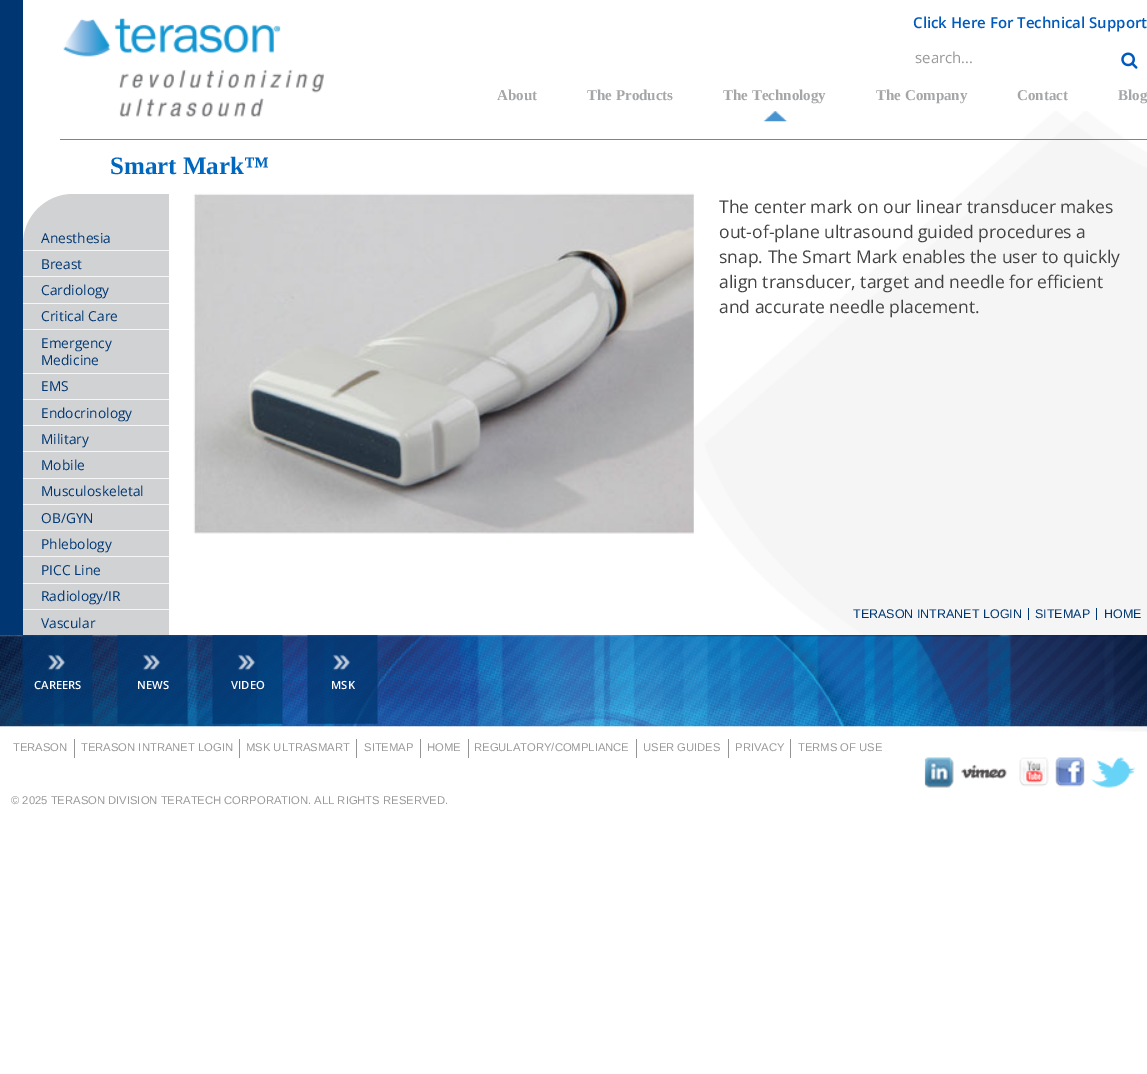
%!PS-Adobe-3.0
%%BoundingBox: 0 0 1147 1074
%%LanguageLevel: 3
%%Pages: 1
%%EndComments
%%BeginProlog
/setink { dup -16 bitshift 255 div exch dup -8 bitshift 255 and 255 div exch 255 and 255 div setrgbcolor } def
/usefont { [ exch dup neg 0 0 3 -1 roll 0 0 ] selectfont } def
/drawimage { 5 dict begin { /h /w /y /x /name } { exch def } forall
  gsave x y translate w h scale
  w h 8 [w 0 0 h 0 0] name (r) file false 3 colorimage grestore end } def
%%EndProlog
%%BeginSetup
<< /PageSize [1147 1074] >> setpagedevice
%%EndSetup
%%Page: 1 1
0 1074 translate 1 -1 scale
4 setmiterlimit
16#FFFFFF setink
0 0 1147 1074 rectfill
(img1.raw) 675 111 472 621 drawimage
16#003772 setink
0 0 23 635 rectfill
/OpenSans-SemiBold 15 usefont
16#005ABB setink
913 28 moveto (Click Here For Technical Support) show
/OpenSans-Regular 15 usefont
16#999999 setink
915 63 moveto (search...) show
(img2.raw) 1121 52 17 17 drawimage
16#4793CF setink
60 139 1087 1 rectfill
(img3.raw) 63 18 261 99 drawimage
/LiberationSerif-Bold 15 usefont
16#A5A6A8 setink
497 100 moveto (About) show
587 100 moveto (The Products) show
(img4.raw) 763 111 24 11 drawimage
[
    [(The Technology) 723 100]
    [(The Company) 876 100]
    [(Contact) 1017 100]
    [(Blog) 1118 100]
] { aload pop moveto show } forall
/LiberationSerif-Bold 25 usefont
16#0067BF setink
110 174 moveto (Smart Mark™) show
16#D1D2D4 setink
73 194 moveto 169 194 lineto 169 635 lineto 23 635 lineto 23 244 lineto 23 216.5 45.5 194 73 194 curveto closepath fill
/OpenSans-Regular 13.75 usefont
16#003772 setink
41 243 moveto (Anesthesia) show
16#F6F6F6 setink
23 250 146 1 rectfill
16#003772 setink
41 269 moveto (Breast) show
16#F6F6F6 setink
23 276 146 1 rectfill
16#003772 setink
41 295 moveto (Cardiology) show
16#F6F6F6 setink
23 303 146 1 rectfill
16#003772 setink
41 321 moveto (Critical Care) show
16#F6F6F6 setink
23 329 146 1 rectfill
16#003772 setink
41 348 moveto (Emergency) show
41 365 moveto (Medicine) show
16#F6F6F6 setink
23 373 146 1 rectfill
16#003772 setink
41 391 moveto (EMS) show
16#F6F6F6 setink
23 399 146 1 rectfill
16#003772 setink
41 418 moveto (Endocrinology) show
16#F6F6F6 setink
23 425 146 1 rectfill
16#003772 setink
41 444 moveto (Military) show
16#F6F6F6 setink
23 451 146 1 rectfill
16#003772 setink
41 470 moveto (Mobile) show
16#F6F6F6 setink
23 478 146 1 rectfill
16#003772 setink
41 496 moveto (Musculoskeletal) show
16#F6F6F6 setink
23 504 146 1 rectfill
16#003772 setink
41 523 moveto (OB/GYN) show
16#F6F6F6 setink
23 530 146 1 rectfill
16#003772 setink
41 549 moveto (Phlebology) show
16#F6F6F6 setink
23 556 146 1 rectfill
16#003772 setink
41 575 moveto (PICC Line) show
16#F6F6F6 setink
23 583 146 1 rectfill
16#003772 setink
41 601 moveto (Radiology/IR) show
16#F6F6F6 setink
23 609 146 1 rectfill
16#003772 setink
41 628 moveto (Vascular) show
(img5.raw) 193 193 501 341 drawimage
/OpenSans-Regular 17.5 usefont
16#444444 setink
[
    [(The center mark on our linear transducer makes) 719 213]
    [(out-of-plane ultrasound guided procedures a) 719 238]
    [(snap. The Smart Mark enables the user to quickly) 719 263]
    [(align transducer, target and needle for efficient) 719 288]
    [(and accurate needle placement.) 719 313]
] { aload pop moveto show } forall
/LiberationSans-Regular 12.5 usefont
16#003772 setink
853 618 moveto (TERASON INTRANET LOGIN) show
1028 608 1 12 rectfill
1035 618 moveto (SITEMAP) show
1096 608 1 12 rectfill
1104 618 moveto (HOME) show
(img6.raw) 0 635 1147 92 drawimage
(img7.raw) 22 635 71 89 drawimage
/OpenSans-SemiBold 11.25 usefont
16#FFFFFF setink
34 689 moveto (CAREERS) show
(img8.raw) 117 635 71 89 drawimage
137 689 moveto (NEWS) show
(img9.raw) 212 635 71 89 drawimage
231 689 moveto (VIDEO) show
(img10.raw) 307 635 71 89 drawimage
331 689 moveto (MSK) show
/LiberationSans-Regular 11.25 usefont
16#999999 setink
13 751 moveto (TERASON) show
16#949494 setink
74 739 1 19 rectfill
16#999999 setink
81 751 moveto (TERASON INTRANET LOGIN) show
16#949494 setink
239 739 1 19 rectfill
16#999999 setink
246 751 moveto (MSK ULTRASMART) show
16#949494 setink
356 739 1 19 rectfill
16#999999 setink
364 751 moveto (SITEMAP) show
16#949494 setink
420 739 1 19 rectfill
16#999999 setink
427 751 moveto (HOME) show
16#949494 setink
468 739 1 19 rectfill
16#999999 setink
474 751 moveto (REGULATORY/COMPLIANCE) show
16#949494 setink
636 739 1 19 rectfill
16#999999 setink
643 751 moveto (USER GUIDES) show
16#949494 setink
728 739 1 19 rectfill
16#999999 setink
735 751 moveto (PRIVACY) show
16#949494 setink
790 739 1 19 rectfill
16#999999 setink
798 751 moveto (TERMS OF USE) show
(img11.raw) 924 757 30 31 drawimage
(img12.raw) 961 764 46 15 drawimage
(img13.raw) 1019 757 30 30 drawimage
(img14.raw) 1055 757 30 30 drawimage
(img15.raw) 1091 757 44 31 drawimage
11 804 moveto (© 2025 TERASON DIVISION TERATECH CORPORATION. ALL RIGHTS RESERVED.) show
showpage
%%EOF
